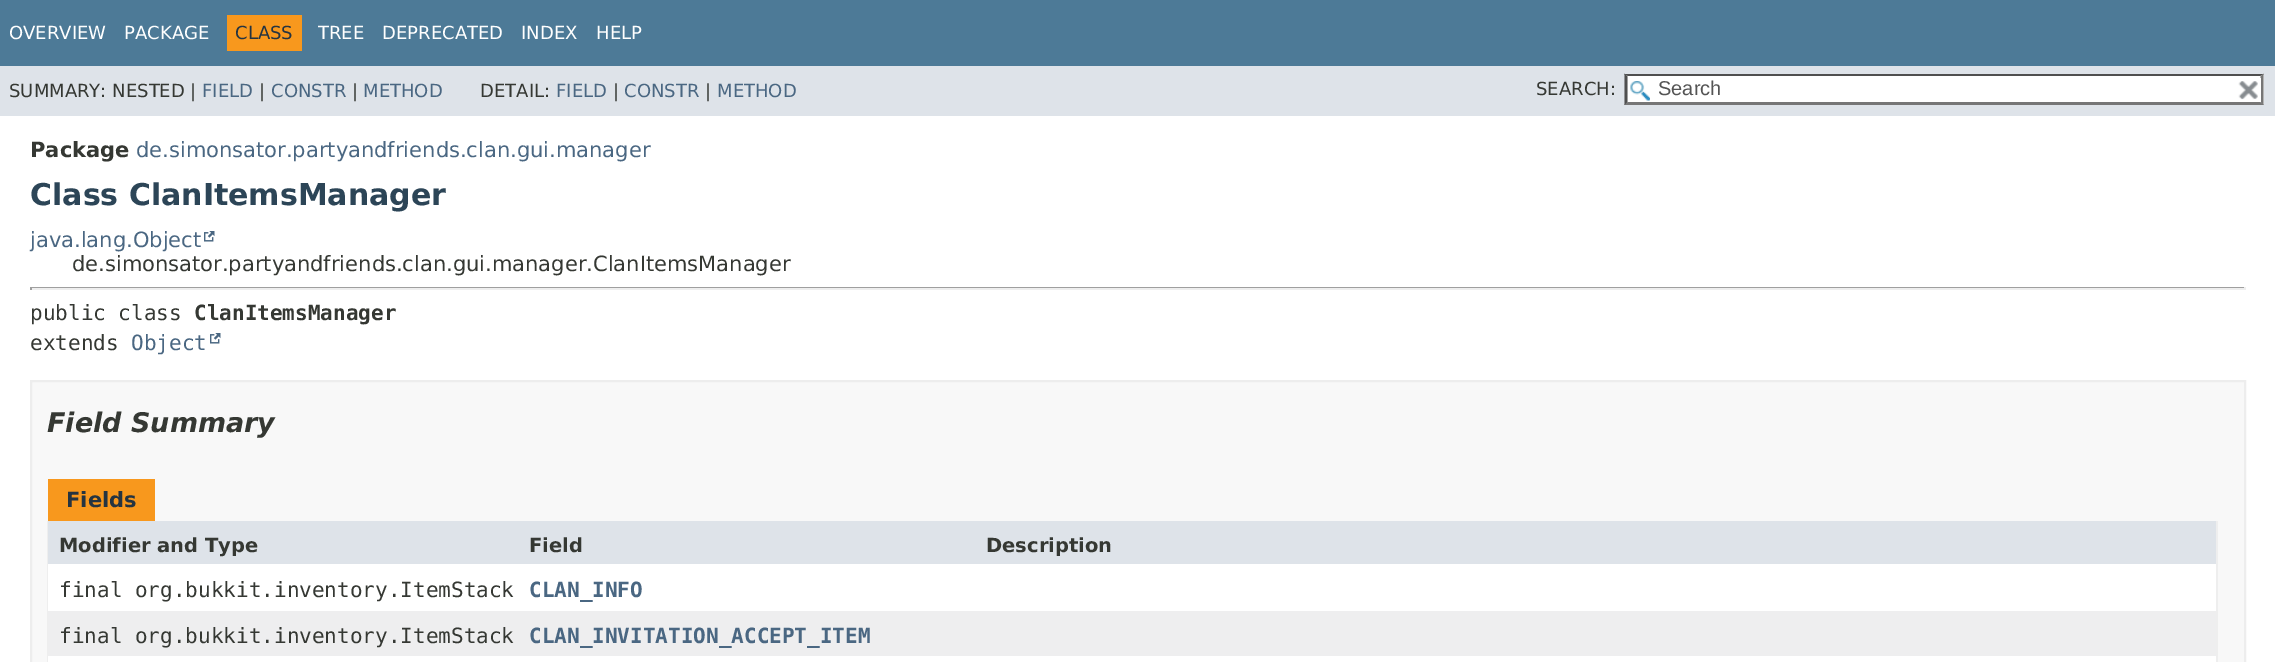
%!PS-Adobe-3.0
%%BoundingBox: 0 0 2275 662
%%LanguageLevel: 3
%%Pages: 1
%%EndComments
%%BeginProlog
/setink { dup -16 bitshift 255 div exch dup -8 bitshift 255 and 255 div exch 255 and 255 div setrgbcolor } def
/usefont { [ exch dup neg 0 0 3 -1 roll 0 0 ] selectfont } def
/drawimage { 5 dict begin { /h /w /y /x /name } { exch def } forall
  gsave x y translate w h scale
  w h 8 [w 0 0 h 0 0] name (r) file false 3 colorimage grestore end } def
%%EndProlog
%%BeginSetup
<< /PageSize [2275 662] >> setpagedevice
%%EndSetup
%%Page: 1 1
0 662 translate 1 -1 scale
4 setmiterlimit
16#FFFFFF setink
0 0 2275 662 rectfill
16#4D7A97 setink
0 0 2275 66 rectfill
/DejaVuSans-Regular 18 usefont
16#FFFFFF setink
9 39 moveto (OVERVIEW) show
124 39 moveto (PACKAGE) show
16#F8981D setink
227 15 75 36 rectfill
16#253441 setink
235 39 moveto (CLASS) show
16#FFFFFF setink
[
    [(TREE) 318 39]
    [(DEPRECATED) 382 39]
    [(INDEX) 521 39]
    [(HELP) 596 39]
] { aload pop moveto show } forall
16#DEE3E9 setink
0 66 2275 50 rectfill
16#353833 setink
9 97 moveto (SUMMARY: NESTED |) show
16#4A6782 setink
202 97 moveto (FIELD) show
16#353833 setink
259 97 moveto (|) show
16#4A6782 setink
271 97 moveto (CONSTR) show
16#353833 setink
352 97 moveto (|) show
16#4A6782 setink
363 97 moveto (METHOD) show
16#353833 setink
480 97 moveto (DETAIL:) show
16#4A6782 setink
556 97 moveto (FIELD) show
16#353833 setink
613 97 moveto (|) show
16#4A6782 setink
624 97 moveto (CONSTR) show
16#353833 setink
705 97 moveto (|) show
16#4A6782 setink
717 97 moveto (METHOD) show
16#353833 setink
1536 95 moveto (SEARCH:) show
16#FFFFFF setink
1625 74 639 31 rectfill
(img1.raw) 1630 81 20 20 drawimage
16#4F4F4F setink
1624 74 moveto 2264 74 lineto 2260 76 lineto 1628 76 lineto closepath fill
16#767676 setink
2263.5 73.5 moveto 2263.5 105 lineto 2260.5 102 lineto 2260.5 76.5 lineto closepath fill
2264 105 moveto 1624 105 lineto 1628 102 lineto 2260 102 lineto closepath fill
16#4F4F4F setink
1624.5 105 moveto 1624.5 73.5 lineto 1627.5 76.5 lineto 1627.5 102 lineto closepath fill
/LiberationSans-Regular 20 usefont
16#545454 setink
1658 95 moveto (Search) show
16#FFFFFF setink
2260 78 1 24 rectfill
(img2.raw) 2238 81 20 19 drawimage
/DejaVuSans-Bold 21 usefont
16#353833 setink
30 157 moveto (Package) show
/DejaVuSans-Regular 21 usefont
16#4A6782 setink
136 157 moveto (de.simonsator.partyandfriends.clan.gui.manager) show
/DejaVuSans-Bold 30 usefont
16#2C4557 setink
30 205 moveto (Class ClanItemsManager) show
/DejaVuSans-Regular 21 usefont
16#4A6782 setink
30 247 moveto (java.lang.Object) show
(img3.raw) 204 231 11 11 drawimage
16#353833 setink
72 271 moveto (de.simonsator.partyandfriends.clan.gui.manager.ClanItemsManager) show
[
    [30 287 2216 1 16#9F9F9F]
    [2244 287 2 3 16#EEEEEE]
    [30 288 2216 2 16#EEEEEE]
    [30 287 2 3 16#9F9F9F]
] { aload pop setink rectfill } forall
/DejaVuSansMono-Regular 21 usefont
16#353833 setink
30 320 moveto (public class) show
/DejaVuSansMono-Bold 21 usefont
194 320 moveto (ClanItemsManager) show
/DejaVuSansMono-Regular 21 usefont
30 350 moveto (extends) show
16#4A6782 setink
131 350 moveto (Object) show
(img3.raw) 210 333 11 11 drawimage
16#F8F8F8 setink
31 381 moveto 2245 381 lineto 2245 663 lineto 31 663 lineto closepath gsave fill grestore
16#EDEDED setink
2 setlinewidth
stroke
/DejaVuSans-BoldItalic 27 usefont
16#353833 setink
47 432 moveto (Field Summary) show
16#F8981D setink
48 479 107 42 rectfill
/DejaVuSans-Bold 21 usefont
16#253441 setink
66 507 moveto (Fields) show
[
    [2216 521 2 141 16#EEEEEE]
    [47 521 1 141 16#EEEEEE]
    [48 521 927 43 16#DEE3E9]
] { aload pop setink rectfill } forall
/DejaVuSans-Bold 19.5 usefont
16#353833 setink
59 552 moveto (Modifier and Type) show
529 552 moveto (Field) show
16#DEE3E9 setink
975 521 1241 43 rectfill
16#353833 setink
986 552 moveto (Description) show
16#FFFFFF setink
48 564 927 47 rectfill
/DejaVuSansMono-Regular 21 usefont
16#353833 setink
59 597 moveto (final org.bukkit.inventory.ItemStack) show
/DejaVuSansMono-Bold 21 usefont
16#4A6782 setink
529 597 moveto (CLAN_INFO) show
16#FFFFFF setink
975 564 1241 47 rectfill
16#EEEEEF setink
48 611 927 45 rectfill
/DejaVuSansMono-Regular 21 usefont
16#353833 setink
59 643 moveto (final org.bukkit.inventory.ItemStack) show
/DejaVuSansMono-Bold 21 usefont
16#4A6782 setink
529 643 moveto (CLAN_INVITATION_ACCEPT_ITEM) show
[
    [975 611 1241 45 16#EEEEEF]
    [48 656 927 6 16#FFFFFF]
    [975 656 1241 6 16#FFFFFF]
] { aload pop setink rectfill } forall
showpage
%%EOF
